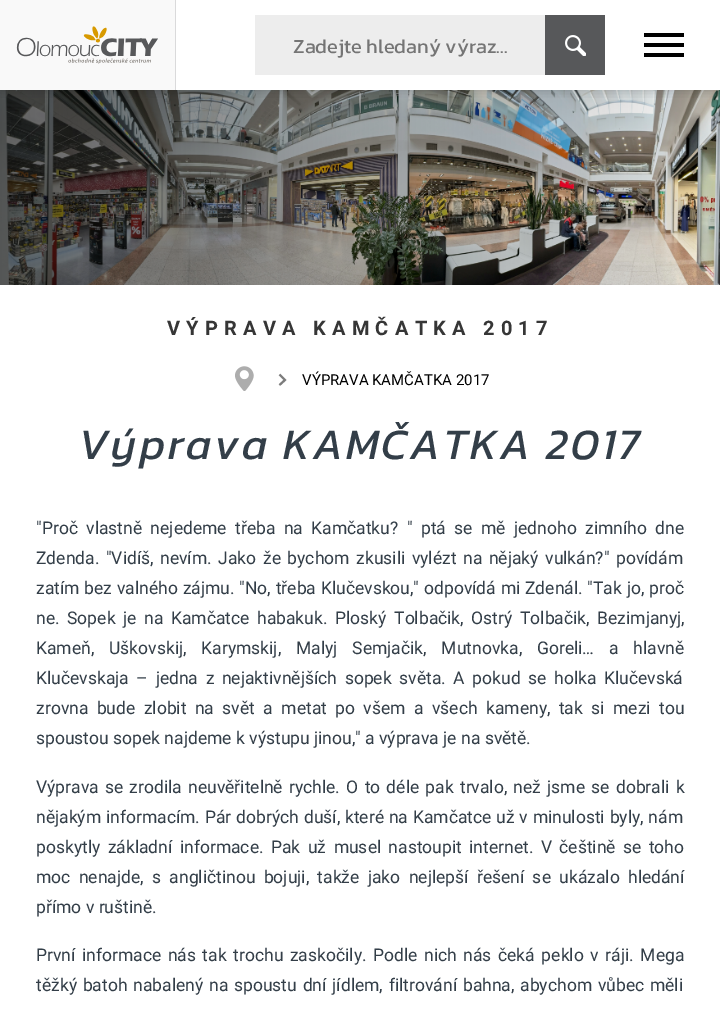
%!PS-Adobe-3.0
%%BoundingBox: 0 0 720 1009
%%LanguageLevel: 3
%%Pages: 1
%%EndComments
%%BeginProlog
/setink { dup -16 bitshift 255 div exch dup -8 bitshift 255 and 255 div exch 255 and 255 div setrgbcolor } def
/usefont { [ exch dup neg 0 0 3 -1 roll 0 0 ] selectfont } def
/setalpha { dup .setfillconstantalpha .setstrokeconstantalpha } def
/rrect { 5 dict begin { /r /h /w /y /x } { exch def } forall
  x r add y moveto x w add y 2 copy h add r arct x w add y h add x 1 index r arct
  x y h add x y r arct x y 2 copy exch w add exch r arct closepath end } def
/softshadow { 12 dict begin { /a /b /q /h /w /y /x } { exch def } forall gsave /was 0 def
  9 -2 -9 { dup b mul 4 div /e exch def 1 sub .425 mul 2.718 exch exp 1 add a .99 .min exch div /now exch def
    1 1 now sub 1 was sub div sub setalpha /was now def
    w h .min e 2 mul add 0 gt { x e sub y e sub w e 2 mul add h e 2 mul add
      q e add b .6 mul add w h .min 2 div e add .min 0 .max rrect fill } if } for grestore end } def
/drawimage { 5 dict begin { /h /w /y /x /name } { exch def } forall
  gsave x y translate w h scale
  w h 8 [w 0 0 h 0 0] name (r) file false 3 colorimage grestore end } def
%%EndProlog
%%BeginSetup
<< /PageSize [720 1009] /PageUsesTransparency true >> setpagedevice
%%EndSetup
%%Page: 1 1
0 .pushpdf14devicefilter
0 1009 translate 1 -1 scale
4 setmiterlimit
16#FFFFFF setink
0 0 720 1009 rectfill
(img3.raw) 0 90 720 195 drawimage
gsave
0 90 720 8 rectclip
16#000000 setink
0 0 720 90 0 6 0.2 softshadow
grestore
16#F9F9F9 setink
0 0 175 90 rectfill
16#DADADB setink
175 0 1 90 rectfill
(img1.raw) 16 26 142 38 drawimage
16#EDEDED setink
255 15 290 60 rectfill
/Kanit-Regular 20 usefont
16#757575 setink
293 53 moveto (Zadejte hledaný výraz...) show
16#57585A setink
545 15 60 60 rectfill
(img2.raw) 565 35 21 21 drawimage
[
    [644 43 40 4 16#000000]
    [644 33 40 4 16#000000]
    [644 53 40 4 16#000000]
] { aload pop setink rectfill } forall
/Roboto-Bold 20 usefont
16#363636 setink
167 335 moveto 6.25 0 (VÝPRAVA KAMČATKA 2017) ashow
16#7C7C7C setink
2 setlinewidth
279.5 374.5 moveto 285 380 lineto 279.5 385 lineto stroke
(img4.raw) 235 366 19 25 drawimage
/Roboto-Regular 15 usefont
16#000000 setink
302 385 moveto (VÝPRAVA KAMČATKA 2017) show
/Kanit-Italic 43.75 usefont
16#333E48 setink
78 459 moveto 2.5 0 (Výprava KAMČATKA 2017) ashow
/Roboto-Regular 17.5 usefont
36 534 moveto 4.1 0 32 ("Proč vlastně nejedeme třeba na Kamčatku? " ptá se mě jednoho zimního dne) widthshow
36 564 moveto 2.25 0 32 (Zdenda. "Vidíš, nevím. Jako že bychom zkusili vylézt na nějaký vulkán?" povídám) widthshow
36 594 moveto 0.5 0 32 (zatím bez valného zájmu. "No, třeba Klučevskou," odpovídá mi Zdenál. "Tak jo, proč) widthshow
36 624 moveto 3.25 0 32 (ne. Sopek je na Kamčatce habakuk. Ploský Tolbačik, Ostrý Tolbačik, Bezimjanyj,) widthshow
36 654 moveto 10.5 0 32 (Kameň, Uškovskij, Karymskij, Malyj Semjačik, Mutnovka, Goreli… a hlavně) widthshow
36 684 moveto 3.25 0 32 (Klučevskaja – jedna z nejaktivnějších sopek světa. A pokud se holka Klučevská) widthshow
36 714 moveto 4.1 0 32 (zrovna bude zlobit na svět a metat po všem a všech kameny, tak si mezi tou) widthshow
36 744 moveto (spoustou sopek najdeme k výstupu jinou," a výprava je na světě.) show
36 793 moveto 1.9 0 32 (Výprava se zrodila neuvěřitelně rychle. O to déle pak trvalo, než jsme se dobrali k) widthshow
36 823 moveto 0.5 0 32 (nějakým informacím. Pár dobrých duší, které na Kamčatce už v minulosti byly, nám) widthshow
36 853 moveto 3.1 0 32 (poskytly základní informace. Pak už musel nastoupit internet. V češtině se toho) widthshow
36 883 moveto 4 0 32 (moc nenajde, s angličtinou bojuji, takže jako nejlepší řešení se ukázalo hledání) widthshow
36 913 moveto (přímo v ruštině.) show
36 961 moveto 2.25 0 32 (První informace nás tak trochu zaskočily. Podle nich nás čeká peklo v ráji. Mega) widthshow
36 991 moveto 1.5 0 32 (těžký batoh nabalený na spoustu dní jídlem, filtrování bahna, abychom vůbec měli) widthshow
.poppdf14devicefilter showpage
%%EOF
